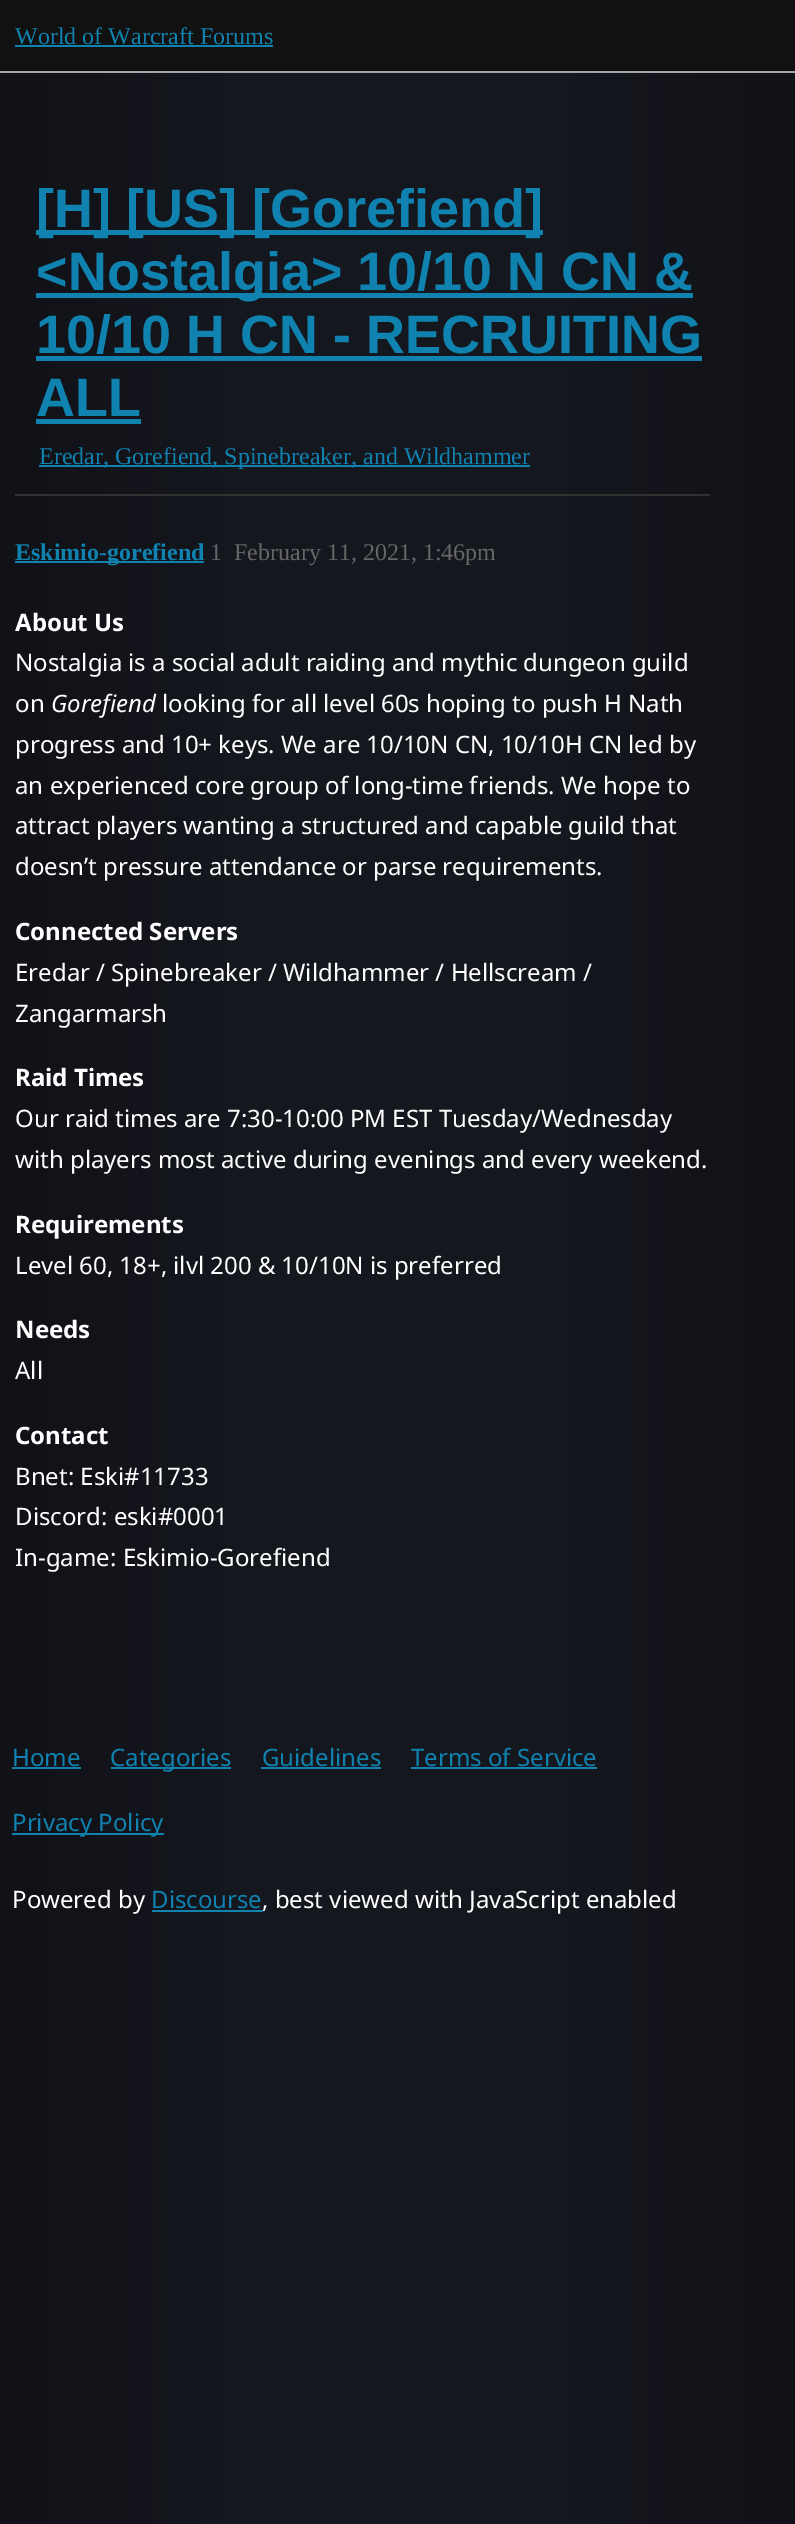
%!PS-Adobe-3.0
%%BoundingBox: 0 0 795 2524
%%LanguageLevel: 3
%%Pages: 1
%%EndComments
%%BeginProlog
/setink { dup -16 bitshift 255 div exch dup -8 bitshift 255 and 255 div exch 255 and 255 div setrgbcolor } def
/usefont { [ exch dup neg 0 0 3 -1 roll 0 0 ] selectfont } def
%%EndProlog
%%BeginSetup
<< /PageSize [795 2524] >> setpagedevice
%%EndSetup
%%Page: 1 1
0 2524 translate 1 -1 scale
4 setmiterlimit
16#FFFFFF setink
0 0 795 2524 rectfill
gsave 0 73 moveto 795 73 lineto 795 2524 lineto 0 2524 lineto closepath clip newpath
<< /ShadingType 2 /ColorSpace /DeviceRGB /Coords [0 1262 795 1262] /Extend [true true] /Function << /FunctionType 3 /Domain [0 1] /Functions [<< /FunctionType 2 /Domain [0 1] /C0 [0.067 0.071 0.09] /C1 [0.082 0.09 0.118] /N 1 >> << /FunctionType 2 /Domain [0 1] /C0 [0.082 0.09 0.118] /C1 [0.082 0.09 0.118] /N 1 >> << /FunctionType 2 /Domain [0 1] /C0 [0.082 0.09 0.118] /C1 [0.067 0.071 0.09] /N 1 >>] /Bounds [0.3 0.7] /Encode [0 1 0 1 0 1] >> >> shfill grestore
16#111111 setink
0 0 795 71 rectfill
16#A4A4A4 setink
0 71 795 2 rectfill
/LiberationSerif-Regular 24 usefont
16#0F82AF setink
15 44 moveto (World of Warcraft Forums) show
15 45 258 2 rectfill
36 230 507 5 rectfill
/LiberationSans-Bold 54 usefont
36 227 moveto ([H] [US] [Gorefiend]) show
36 293 657 5 rectfill
36 290 moveto (<Nostalgia> 10/10 N CN &) show
36 353 moveto (10/10 H CN - RECRUITING) show
36 356 666 5 rectfill
36 416 moveto (ALL) show
36 419 105 5 rectfill
39 465 491 2 rectfill
/LiberationSerif-Regular 24 usefont
39 464 moveto (Eredar, Gorefiend, Spinebreaker, and Wildhammer) show
16#313131 setink
15 494 695 2 rectfill
16#0F82AF setink
15 561 189 2 rectfill
/LiberationSerif-Bold 24 usefont
15 560 moveto (Eskimio-gorefiend) show
/LiberationSerif-Regular 24 usefont
16#666666 setink
210 560 moveto (1) show
234 560 moveto (February 11, 2021, 1:46pm) show
/NotoSans-Bold 24 usefont
16#FFFFFF setink
15 631 moveto (About Us) show
/NotoSans-Regular 24 usefont
15 671 moveto (Nostalgia is a social adult raiding and mythic dungeon guild) show
15 712 moveto (on) show
/NotoSans-Italic 24 usefont
51 712 moveto (Gorefiend) show
/NotoSans-Regular 24 usefont
[
    [(looking for all level 60s hoping to push H Nath) 162 712]
    [(progress and 10+ keys. We are 10/10N CN, 10/10H CN led by) 15 753]
    [(an experienced core group of long-time friends. We hope to) 15 794]
    [(attract players wanting a structured and capable guild that) 15 834]
    [(doesn’t pressure attendance or parse requirements.) 15 875]
] { aload pop moveto show } forall
/NotoSans-Bold 24 usefont
15 940 moveto (Connected Servers) show
/NotoSans-Regular 24 usefont
15 981 moveto (Eredar / Spinebreaker / Wildhammer / Hellscream /) show
15 1022 moveto (Zangarmarsh) show
/NotoSans-Bold 24 usefont
15 1086 moveto (Raid Times) show
/NotoSans-Regular 24 usefont
15 1127 moveto (Our raid times are 7:30-10:00 PM EST Tuesday/Wednesday) show
15 1168 moveto (with players most active during evenings and every weekend.) show
/NotoSans-Bold 24 usefont
15 1233 moveto (Requirements) show
/NotoSans-Regular 24 usefont
15 1274 moveto (Level 60, 18+, ilvl 200 & 10/10N is preferred) show
/NotoSans-Bold 24 usefont
15 1338 moveto (Needs) show
/NotoSans-Regular 24 usefont
15 1379 moveto (All) show
/NotoSans-Bold 24 usefont
15 1444 moveto (Contact) show
/NotoSans-Regular 24 usefont
[
    [(Bnet: Eski#11733) 15 1485]
    [(Discord: eski#0001) 15 1525]
    [(In-game: Eskimio-Gorefiend) 15 1566]
] { aload pop moveto show } forall
16#0F82AF setink
12 1766 moveto (Home) show
12 1767 69 2 rectfill
111 1767 120 2 rectfill
110 1766 moveto (Categories) show
262 1766 moveto (Guidelines) show
261 1767 120 2 rectfill
411 1766 moveto (Terms of Service) show
411 1767 186 2 rectfill
12 1833 152 2 rectfill
12 1831 moveto (Privacy Policy) show
16#FFFFFF setink
12 1908 moveto (Powered by) show
16#0F82AF setink
151 1908 moveto (Discourse) show
152 1910 111 2 rectfill
16#FFFFFF setink
262 1908 moveto (, best viewed with JavaScript enabled) show
showpage
%%EOF
